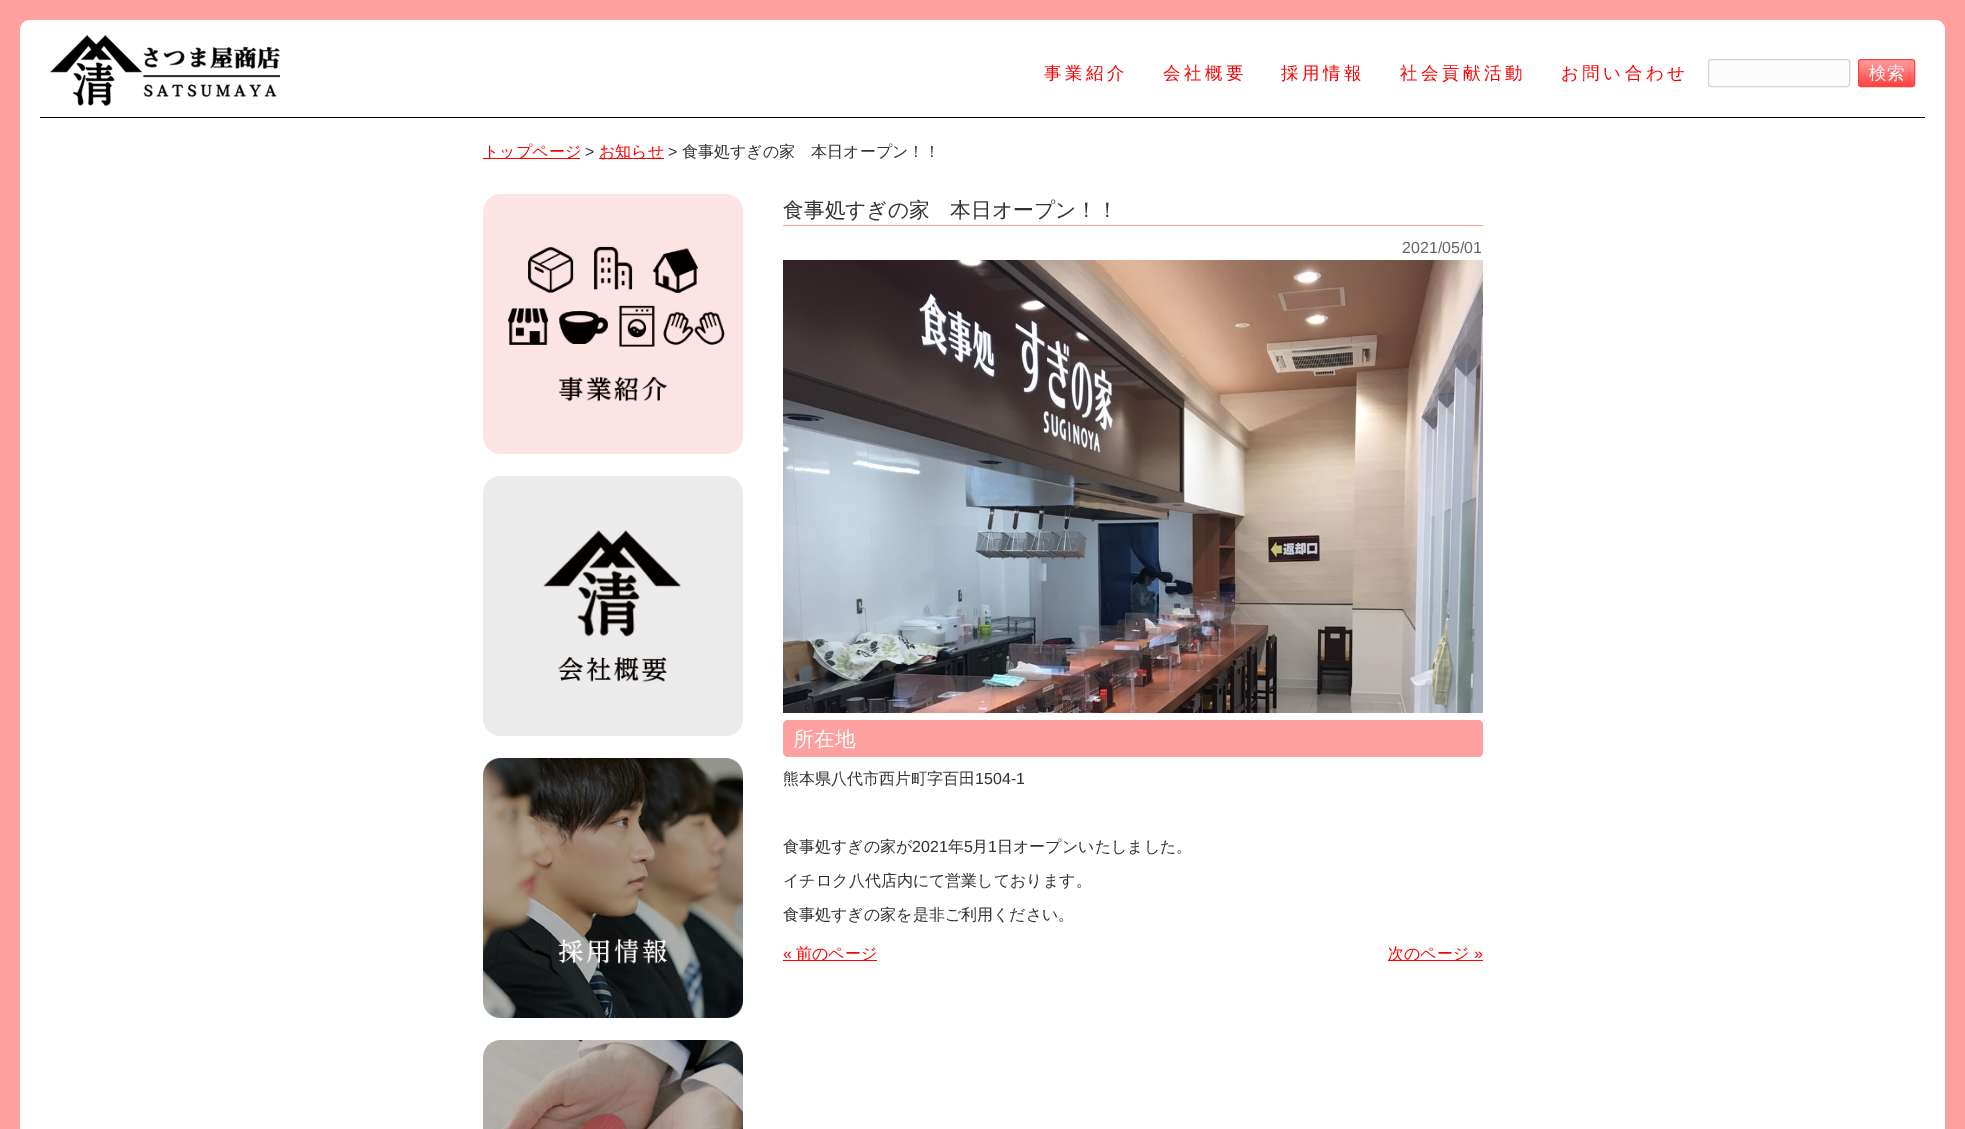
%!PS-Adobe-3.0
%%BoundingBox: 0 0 1965 1129
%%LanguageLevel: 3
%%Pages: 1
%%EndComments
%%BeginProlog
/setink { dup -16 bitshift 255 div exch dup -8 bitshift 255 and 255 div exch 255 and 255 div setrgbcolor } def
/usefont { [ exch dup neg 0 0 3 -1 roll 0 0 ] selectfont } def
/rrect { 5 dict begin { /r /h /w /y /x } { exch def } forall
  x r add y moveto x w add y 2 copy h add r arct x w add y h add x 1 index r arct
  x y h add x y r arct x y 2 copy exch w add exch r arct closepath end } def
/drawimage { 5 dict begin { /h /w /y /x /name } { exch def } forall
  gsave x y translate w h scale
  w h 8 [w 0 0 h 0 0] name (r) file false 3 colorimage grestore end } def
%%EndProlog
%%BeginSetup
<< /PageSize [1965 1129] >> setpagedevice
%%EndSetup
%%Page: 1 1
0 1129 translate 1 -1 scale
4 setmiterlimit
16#FFA0A0 setink
0 0 1965 1129 rectfill
16#FFFFFF setink
20 20 1925 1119 10 rrect fill
16#000000 setink
40 117 1885 1 rectfill
(img1.raw) 50 35 230 71 drawimage
/WenQuanYiZenHei-Medium 17.5 usefont
16#FF0000 setink
1044 79 moveto 3.5 0 (事業紹介) ashow
1163 79 moveto 3.5 0 (会社概要) ashow
1281 79 moveto 3.5 0 (採用情報) ashow
1400 79 moveto 3.5 0 (社会貢献活動) ashow
1561 79 moveto 3.5 0 (お問い合わせ) ashow
16#FCFCFC setink
1708.5 59.5 141 27 2.5 rrect gsave fill grestore
16#D4D4D7 setink
stroke
gsave
1858 59 57 28 3 rrect clip newpath
gsave 1858 60 moveto 1915 60 lineto 1915 86 lineto 1858 86 lineto closepath clip newpath
<< /ShadingType 2 /ColorSpace /DeviceRGB /Coords [1887 60 1887 86] /Extend [true true] /Function << /FunctionType 2 /Domain [0 1] /C0 [1 0.627 0.627] /C1 [1 0.259 0.259] /N 1 >> >> shfill grestore
grestore
16#FF4242 setink
1858.5 59.5 56 27 2.5 rrect stroke
16#FFFFFF setink
1869 79 moveto (検索) show
16#FF0000 setink
483 158 97 1 rectfill
/WenQuanYiZenHei-Medium 16 usefont
483 157 moveto (トップページ) show
/LiberationSans-Regular 16 usefont
16#333333 setink
585 157 moveto (>) show
16#FF0000 setink
599 158 65 1 rectfill
/WenQuanYiZenHei-Medium 16 usefont
599 157 moveto (お知らせ) show
/LiberationSans-Regular 16 usefont
16#333333 setink
668 157 moveto (>) show
/WenQuanYiZenHei-Medium 16 usefont
682 157 moveto (食事処すぎの家　本日オープン！！) show
(img2.raw) 483 194 260 260 drawimage
(img3.raw) 483 476 260 260 drawimage
(img4.raw) 483 758 260 260 drawimage
(img5.raw) 483 1040 260 89 drawimage
16#FFA0A0 setink
783 225 700 1 rectfill
/WenQuanYiZenHei-Medium 20.75 usefont
16#333333 setink
783 217 moveto (食事処すぎの家　本日オープン！！) show
/LiberationSans-Regular 16 usefont
16#666666 setink
1402 253 moveto (2021/05/01) show
(img6.raw) 783 260 700 453 drawimage
16#FFA0A0 setink
783 720 700 37 5 rrect fill
/WenQuanYiZenHei-Medium 20.75 usefont
16#FFFFFF setink
793 746 moveto (所在地) show
/WenQuanYiZenHei-Medium 16 usefont
16#333333 setink
783 784 moveto (熊本県八代市西片町字百田) show
/LiberationSans-Regular 16 usefont
975 784 moveto (1504-1) show
/WenQuanYiZenHei-Medium 16 usefont
783 852 moveto (食事処すぎの家が) show
/LiberationSans-Regular 16 usefont
912 852 moveto (2021) show
/WenQuanYiZenHei-Medium 16 usefont
948 852 moveto (年) show
/LiberationSans-Regular 16 usefont
964 852 moveto (5) show
/WenQuanYiZenHei-Medium 16 usefont
972 852 moveto (月) show
/LiberationSans-Regular 16 usefont
988 852 moveto (1) show
/WenQuanYiZenHei-Medium 16 usefont
[
    [(日オープンいたしました。) 997 852]
    [(イチロク八代店内にて営業しております。) 783 886]
    [(食事処すぎの家を是非ご利用ください。) 783 920]
] { aload pop moveto show } forall
/LiberationSans-Regular 16 usefont
16#FF0000 setink
783 959 moveto («) show
783 960 94 1 rectfill
/WenQuanYiZenHei-Medium 16 usefont
796 959 moveto (前のページ) show
1388 960 95 1 rectfill
1388 959 moveto (次のページ) show
/LiberationSans-Regular 16 usefont
1474 959 moveto (») show
showpage
%%EOF
